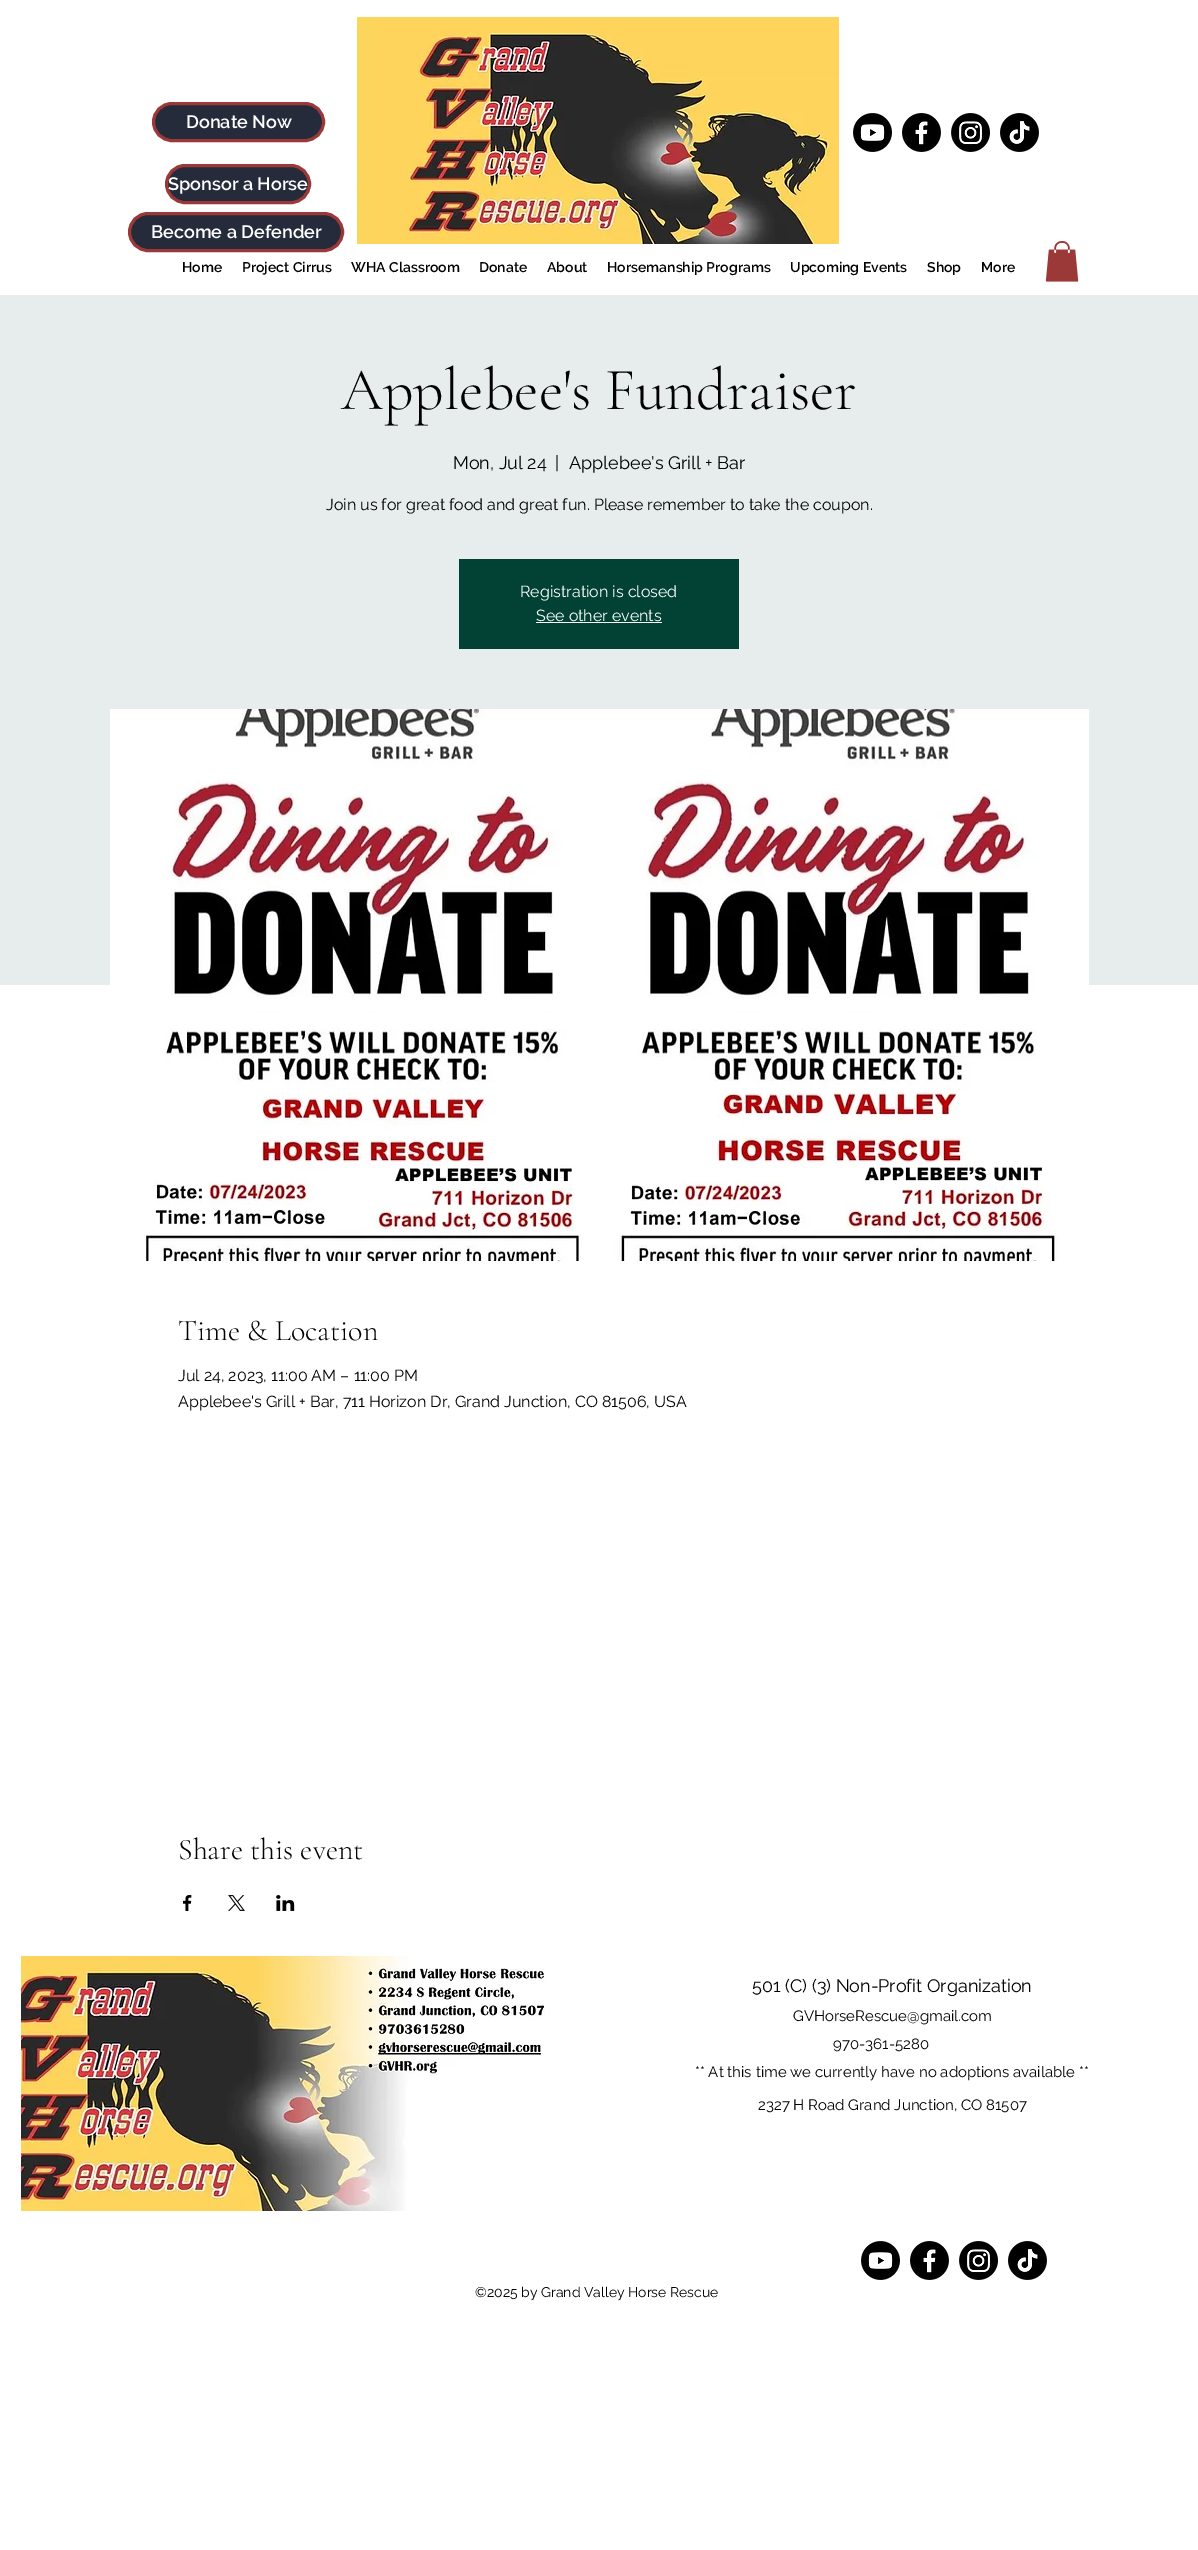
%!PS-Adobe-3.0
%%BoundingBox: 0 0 1198 2550
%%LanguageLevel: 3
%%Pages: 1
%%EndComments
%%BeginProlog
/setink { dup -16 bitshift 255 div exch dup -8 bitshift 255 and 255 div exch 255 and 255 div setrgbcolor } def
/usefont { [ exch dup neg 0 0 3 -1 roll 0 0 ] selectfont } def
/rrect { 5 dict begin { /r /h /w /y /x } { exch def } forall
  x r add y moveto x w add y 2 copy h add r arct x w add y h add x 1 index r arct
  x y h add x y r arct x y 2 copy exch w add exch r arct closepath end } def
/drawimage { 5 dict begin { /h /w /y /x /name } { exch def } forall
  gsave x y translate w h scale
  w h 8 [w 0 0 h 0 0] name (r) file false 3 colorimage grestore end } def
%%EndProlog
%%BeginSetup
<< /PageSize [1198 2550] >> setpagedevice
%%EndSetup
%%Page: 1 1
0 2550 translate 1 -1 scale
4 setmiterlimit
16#FFFFFF setink
0 0 1198 2550 rectfill
16#262B3B setink
153.5 103.5 170 37 18.5 rrect gsave fill grestore
16#9B3939 setink
3 setlinewidth
stroke
/Raleway-SemiBold 18 usefont
16#FFFFFF setink
186 128 moveto (Donate Now) show
(img1.raw) 357 17 482 227 drawimage
(img2.raw) 853 113 39 39 drawimage
(img3.raw) 902 113 39 39 drawimage
(img4.raw) 951 113 39 39 drawimage
(img5.raw) 1000 113 39 39 drawimage
16#262B3B setink
166.5 165.5 143 37 18.5 rrect gsave fill grestore
16#9B3939 setink
stroke
16#FFFFFF setink
168 190 moveto (Sponsor a Horse) show
16#262B3B setink
129.5 213.5 213 37 18.5 rrect gsave fill grestore
16#9B3939 setink
stroke
16#FFFFFF setink
151 238 moveto (Become a Defender) show
/Raleway-SemiBold 14 usefont
16#000000 setink
[
    [(Home) 182 272]
    [(Project Cirrus) 242 272]
    [(WHA Classroom) 351 272]
    [(Donate) 479 272]
    [(About) 547 272]
    [(Horsemanship Programs) 607 272]
    [(Upcoming Events) 790 272]
    [(Shop) 927 272]
    [(More) 981 272]
] { aload pop moveto show } forall
(img6.raw) 1045 241 34 41 drawimage
16#E6EDEC setink
0 295 1198 690 rectfill
/CormorantGaramond-Light 60 usefont
16#000000 setink
341 409 moveto (Applebee's Fundraiser) show
/Raleway-Regular 18 usefont
[
    [(Mon, Jul 24) 453 469]
    [(|) 555 469]
    [(Applebee's Grill + Bar) 569 469]
] { aload pop moveto show } forall
/Raleway-Regular 16 usefont
326 510 moveto (Join us for great food and great fun. Please remember to take the coupon.) show
16#014235 setink
459 559 280 90 rectfill
16#FFFFFF setink
520 597 moveto (Registration is closed) show
536 621 moveto (See other events) show
536 622 126 1 rectfill
(img7.raw) 110 709 979 552 drawimage
/CormorantGaramond-Light 30 usefont
16#000000 setink
178 1340 moveto (Time & Location) show
/Raleway-Regular 16 usefont
178 1381 moveto (Jul 24, 2023, 11:00 AM – 11:00 PM) show
178 1407 moveto (Applebee's Grill + Bar, 711 Horizon Dr, Grand Junction, CO 81506, USA) show
/CormorantGaramond-Light 30 usefont
178 1859 moveto (Share this event) show
(img8.raw) 183 1895 9 16 drawimage
(img9.raw) 228 1895 17 16 drawimage
(img10.raw) 276 1895 19 16 drawimage
(img11.raw) 21 1956 524 255 drawimage
/Raleway-Regular 18 usefont
752 1992 moveto (501 \(C\) \(3\) Non-Profit Organization) show
/Raleway-Regular 15 usefont
[
    [(GVHorseRescue@gmail.com) 793 2021]
    [(970-361-5280) 833 2049]
    [(** At this time we currently have no adoptions available **) 695 2077]
    [(2327 H Road Grand Junction, CO 81507) 758 2110]
] { aload pop moveto show } forall
(img2.raw) 861 2241 39 39 drawimage
(img3.raw) 910 2241 39 39 drawimage
(img4.raw) 959 2241 39 39 drawimage
(img5.raw) 1008 2241 39 39 drawimage
/Raleway-Regular 14 usefont
475 2297 moveto (©2025 by Grand Valley Horse Rescue) show
showpage
%%EOF
